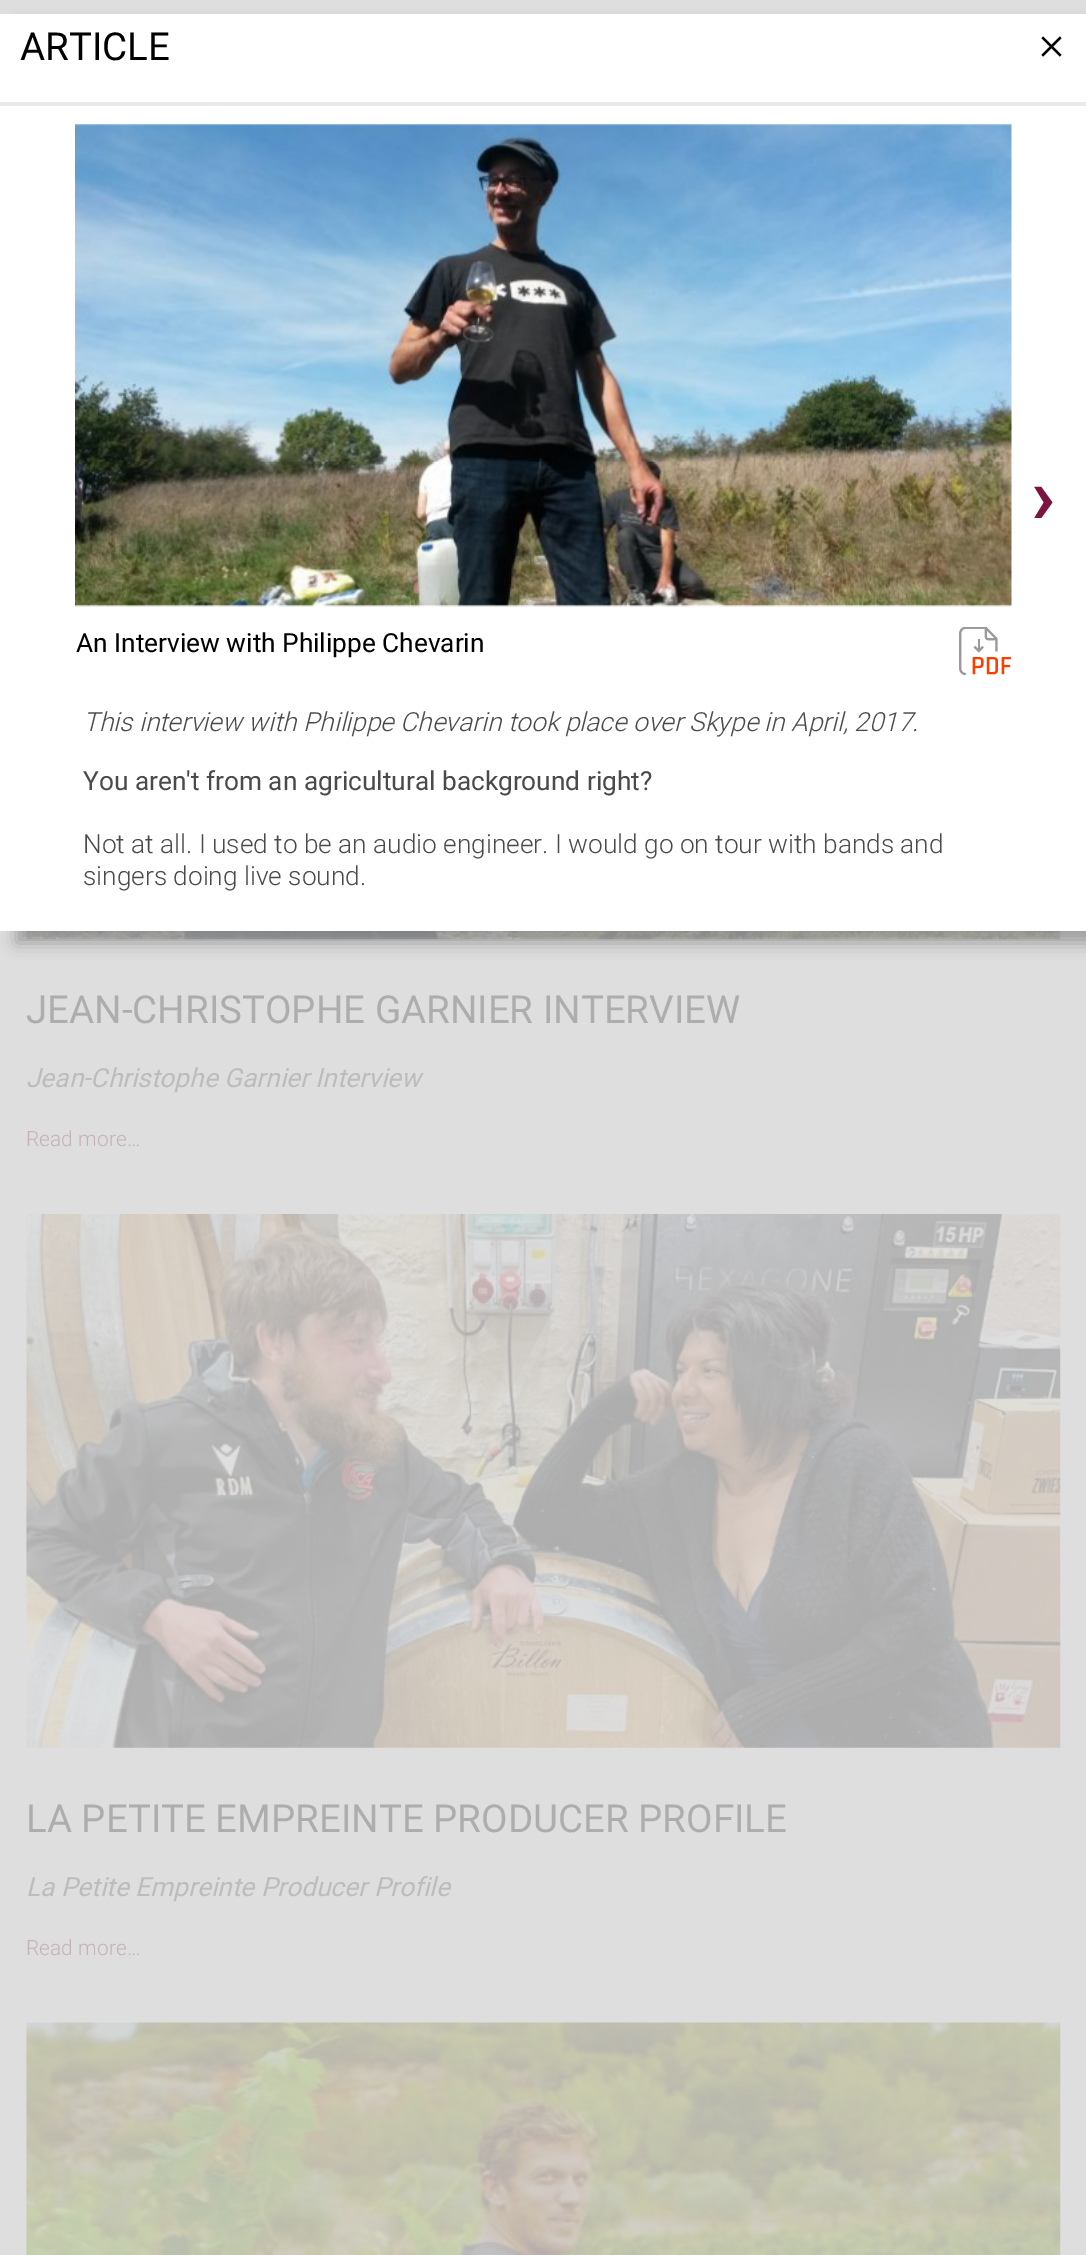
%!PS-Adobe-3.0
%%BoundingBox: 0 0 1086 2255
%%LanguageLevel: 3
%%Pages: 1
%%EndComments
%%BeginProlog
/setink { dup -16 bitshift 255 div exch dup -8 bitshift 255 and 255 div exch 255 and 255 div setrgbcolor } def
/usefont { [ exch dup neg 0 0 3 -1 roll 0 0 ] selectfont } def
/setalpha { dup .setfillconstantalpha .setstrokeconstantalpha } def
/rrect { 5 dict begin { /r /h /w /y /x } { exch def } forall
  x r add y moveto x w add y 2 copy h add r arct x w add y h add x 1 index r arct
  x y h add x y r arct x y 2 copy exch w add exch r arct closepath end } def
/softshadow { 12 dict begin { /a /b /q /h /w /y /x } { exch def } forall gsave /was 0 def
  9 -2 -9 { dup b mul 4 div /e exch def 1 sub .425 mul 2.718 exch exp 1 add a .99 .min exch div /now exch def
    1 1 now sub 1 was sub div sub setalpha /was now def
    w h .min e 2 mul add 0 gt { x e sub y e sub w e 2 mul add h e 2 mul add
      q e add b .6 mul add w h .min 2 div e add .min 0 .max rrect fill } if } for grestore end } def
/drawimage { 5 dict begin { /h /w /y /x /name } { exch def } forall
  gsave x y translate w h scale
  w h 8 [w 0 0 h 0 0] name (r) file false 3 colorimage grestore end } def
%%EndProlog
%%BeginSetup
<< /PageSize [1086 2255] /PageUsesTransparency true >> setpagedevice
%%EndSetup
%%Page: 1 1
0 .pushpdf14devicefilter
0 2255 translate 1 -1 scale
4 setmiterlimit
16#DEDEDE setink
0 0 1086 2255 rectfill
(img4.raw) 26 931 1035 9 drawimage
16#000000 setink
16 26 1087 917 0 8 0.29 softshadow
16#FFFFFF setink
0 14 1086 917 rectfill
16#E9E9E9 setink
0 102 1086 4 rectfill
/Roboto-Regular 38.5 usefont
16#000000 setink
20 60 moveto (ARTICLE) show
(img1.raw) 1041 36 21 21 drawimage
(img2.raw) 75 124 937 483 drawimage
/Roboto-Regular 26.25 usefont
76 652 moveto (An Interview with Philippe Chevarin) show
(img3.raw) 959 627 52 48 drawimage
/Roboto-LightItalic 26.25 usefont
16#4A4A4A setink
83 731 moveto (This interview with Philippe Chevarin took place over Skype in April, 2017.) show
/Roboto-Regular 26.25 usefont
83 790 moveto (You aren't from an agricultural background right?) show
/Roboto-Light 26.25 usefont
83 853 moveto (Not at all. I used to be an audio engineer. I would go on tour with bands and) show
83 885 moveto (singers doing live sound.) show
/Roboto-Bold 80 usefont
16#7B143E setink
1031 523 moveto (›) show
/Roboto-Regular 38.5 usefont
16#ADADAD setink
26 1023 moveto (JEAN-CHRISTOPHE GARNIER INTERVIEW) show
/Roboto-Italic 26.25 usefont
16#BCBCBC setink
26 1087 moveto (Jean-Christophe Garnier Interview) show
/Roboto-Light 21 usefont
16#C5B1B9 setink
26 1146 moveto (Read more…) show
(img5.raw) 26 1214 1035 534 drawimage
/Roboto-Regular 38.5 usefont
16#ADADAD setink
26 1832 moveto (LA PETITE EMPREINTE PRODUCER PROFILE) show
/Roboto-Italic 26.25 usefont
16#BCBCBC setink
26 1896 moveto (La Petite Empreinte Producer Profile) show
/Roboto-Light 21 usefont
16#C5B1B9 setink
26 1955 moveto (Read more…) show
(img6.raw) 26 2022 1035 233 drawimage
.poppdf14devicefilter showpage
%%EOF
